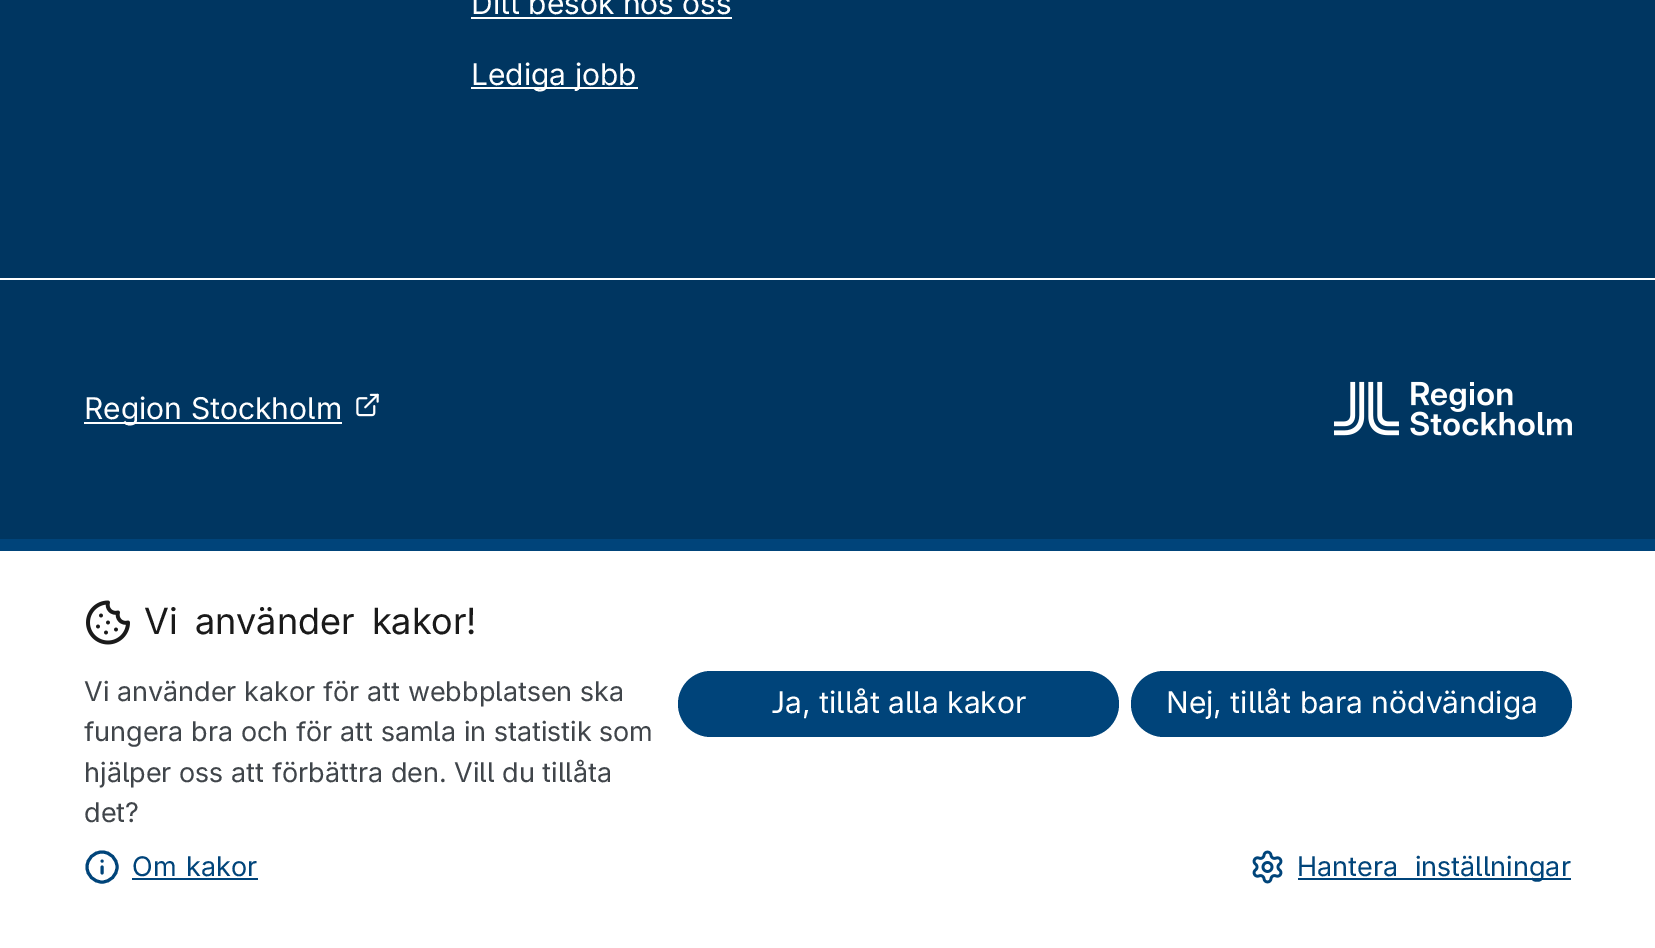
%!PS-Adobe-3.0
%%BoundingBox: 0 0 1655 948
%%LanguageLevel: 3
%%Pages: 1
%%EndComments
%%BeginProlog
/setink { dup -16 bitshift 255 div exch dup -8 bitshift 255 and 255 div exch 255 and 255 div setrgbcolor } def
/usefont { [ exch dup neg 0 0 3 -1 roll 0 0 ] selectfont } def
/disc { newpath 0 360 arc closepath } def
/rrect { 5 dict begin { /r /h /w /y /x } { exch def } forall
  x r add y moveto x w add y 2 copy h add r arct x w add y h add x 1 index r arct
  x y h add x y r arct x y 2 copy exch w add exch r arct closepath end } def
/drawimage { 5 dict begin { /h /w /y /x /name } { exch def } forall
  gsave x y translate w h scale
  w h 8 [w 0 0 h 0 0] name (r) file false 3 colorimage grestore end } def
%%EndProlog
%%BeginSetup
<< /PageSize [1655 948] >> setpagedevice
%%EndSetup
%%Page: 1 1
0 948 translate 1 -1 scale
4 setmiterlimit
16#003661 setink
0 0 1655 948 rectfill
/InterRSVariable-Regular 30 usefont
16#FFFFFF setink
471 14 moveto (Ditt besök hos oss) show
471 17 261 2 rectfill
471 87 167 2 rectfill
471 85 moveto (Lediga jobb) show
0 278 1655 2 rectfill
84 422 258 2 rectfill
84 419 moveto (Region Stockholm) show
(img1.raw) 356 393 23 24 drawimage
(img2.raw) 1334 381 238 55 drawimage
0 551 1655 397 rectfill
16#00447A setink
0 539 1655 12 rectfill
(img3.raw) 86 600 44 45 drawimage
/InterRSVariable-Regular 36 usefont
16#1A1A1A setink
144 634 moveto 7 0 32 (Vi använder kakor!) widthshow
/InterRSVariable-Regular 27 usefont
16#40454A setink
[
    [(Vi använder kakor för att webbplatsen ska) 84 701]
    [(fungera bra och för att samla in statistik som) 84 741]
    [(hjälper oss att förbättra den. Vill du tillåta) 84 782]
    [(det?) 84 822]
] { aload pop moveto show } forall
16#00447A setink
678 671 441 66 33 rrect fill
/InterRSVariable-Regular 30 usefont
16#FFFFFF setink
771 713 moveto (Ja, tillåt alla kakor) show
16#00447A setink
1131 671 441 66 33 rrect fill
16#FFFFFF setink
1166 713 moveto (Nej, tillåt bara nödvändiga) show
16#00447A setink
3 setlinewidth
102 867 15 disc stroke
1 setlinecap
1 setlinejoin
102 873 moveto 102 867 lineto 102 861 moveto 102 861 lineto stroke
/InterRSVariable-Regular 27 usefont
132 876 moveto 2 0 32 (Om kakor) widthshow
132 878 126 2 rectfill
(img4.raw) 1252 850 31 34 drawimage
1298 878 273 2 rectfill
1297 876 moveto 9 0 32 (Hantera inställningar) widthshow
showpage
%%EOF
